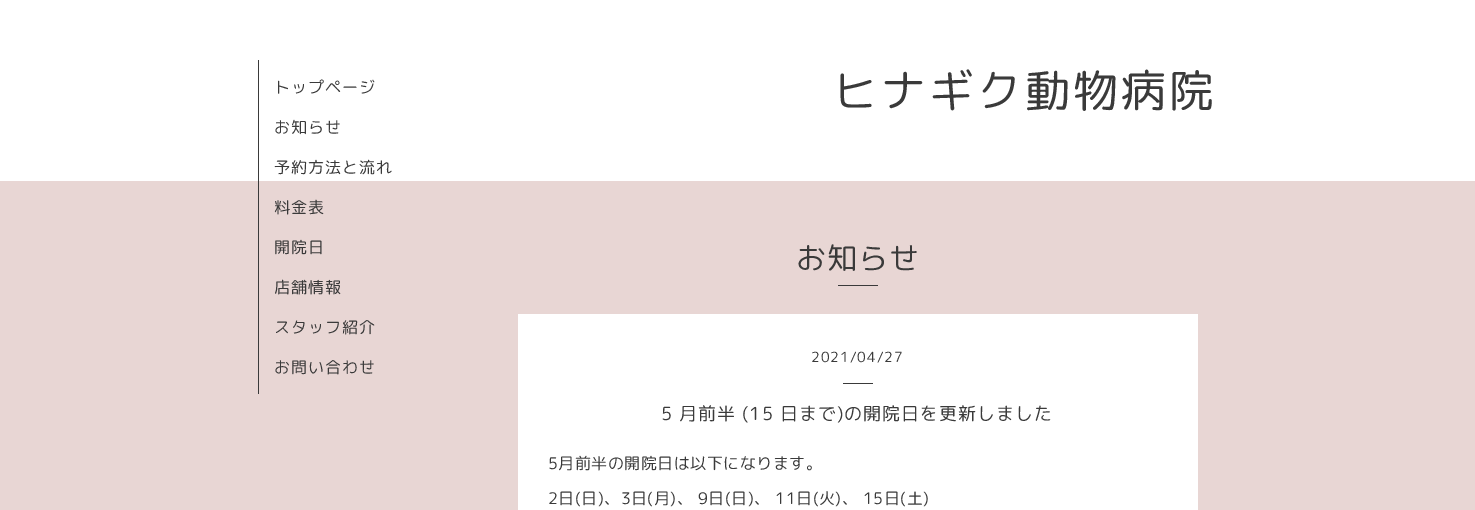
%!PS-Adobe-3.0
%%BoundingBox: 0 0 1475 510
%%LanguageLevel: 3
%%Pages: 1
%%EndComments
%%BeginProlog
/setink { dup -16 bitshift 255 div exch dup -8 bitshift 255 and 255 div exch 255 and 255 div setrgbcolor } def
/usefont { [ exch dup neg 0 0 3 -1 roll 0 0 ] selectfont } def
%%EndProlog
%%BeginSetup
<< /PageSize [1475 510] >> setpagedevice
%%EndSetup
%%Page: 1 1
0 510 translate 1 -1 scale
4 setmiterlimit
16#FFFFFF setink
0 0 1475 510 rectfill
16#E8D6D4 setink
0 181 1475 329 rectfill
16#3A3A3A setink
258 60 1 334 rectfill
/RoundedMplus1c-Regular 16 usefont
274 93 moveto 1 0 (トップページ) ashow
274 133 moveto 1 0 (お知らせ) ashow
274 173 moveto 1 0 (予約方法と流れ) ashow
274 213 moveto 1 0 (料金表) ashow
274 253 moveto 1 0 (開院日) ashow
274 293 moveto 1 0 (店舗情報) ashow
274 333 moveto 1 0 (スタッフ紹介) ashow
274 373 moveto 1 0 (お問い合わせ) ashow
/RoundedMplus1c-Regular 45 usefont
833 107 moveto 3 0 (ヒナギク動物病院) ashow
/RoundedMplus1c-Regular 30 usefont
796 269 moveto 1 0 (お知らせ) ashow
838 285 40 1 rectfill
16#FFFFFF setink
518 314 680 196 rectfill
/RoundedMplus1c-Regular 14 usefont
16#3A3A3A setink
811 362 moveto 1 0 (2021/04/27) ashow
843 383 30 1 rectfill
/RoundedMplus1c-Regular 18 usefont
661 420 moveto 1 0 (5 月前半 \(15 日まで\)の開院日を更新しました) ashow
/RoundedMplus1c-Regular 16 usefont
548 469 moveto 0.5 0 (5月前半の開院日は以下になります。) ashow
548 504 moveto 0.5 0 (2日\(日\)、3日\(月\)、 9日\(日\)、 11日\(火\)、 15日\(土\)) ashow
showpage
%%EOF
